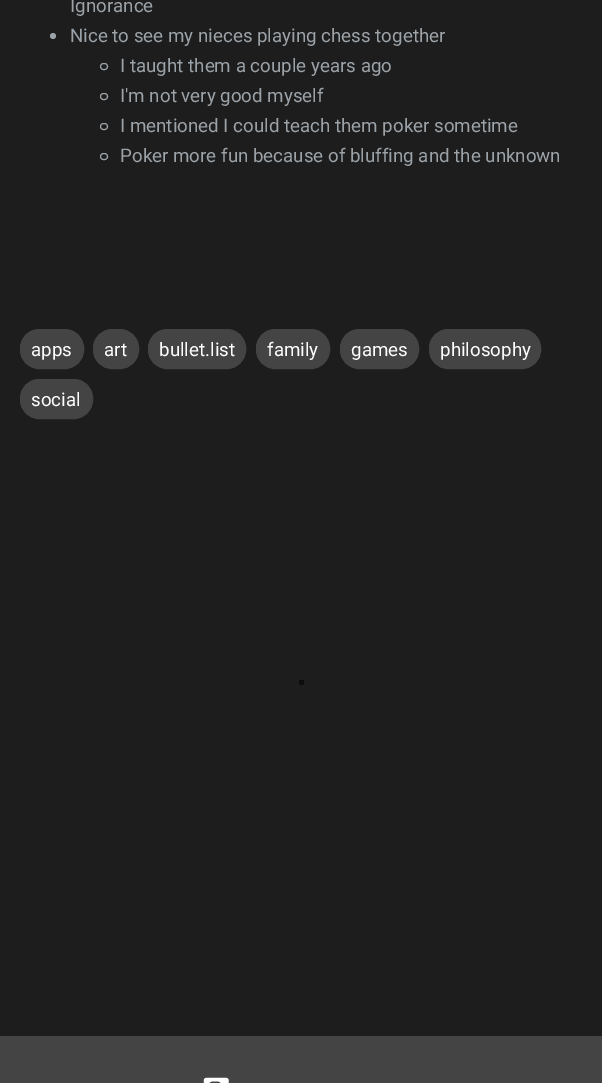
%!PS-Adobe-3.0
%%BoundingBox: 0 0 602 1083
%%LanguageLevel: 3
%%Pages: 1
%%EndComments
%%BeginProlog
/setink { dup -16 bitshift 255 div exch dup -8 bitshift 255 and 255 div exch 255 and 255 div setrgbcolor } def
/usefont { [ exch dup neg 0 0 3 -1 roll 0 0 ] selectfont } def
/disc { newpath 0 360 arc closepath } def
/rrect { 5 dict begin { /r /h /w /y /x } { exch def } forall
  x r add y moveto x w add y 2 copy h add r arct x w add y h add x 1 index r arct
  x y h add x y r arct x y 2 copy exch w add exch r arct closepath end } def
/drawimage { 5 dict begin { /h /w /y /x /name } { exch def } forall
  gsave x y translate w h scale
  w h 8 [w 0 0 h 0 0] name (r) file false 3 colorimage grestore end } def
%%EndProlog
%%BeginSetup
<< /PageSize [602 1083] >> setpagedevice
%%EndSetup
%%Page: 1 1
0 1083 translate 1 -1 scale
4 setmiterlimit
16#444444 setink
0 0 602 1083 rectfill
16#1D1D1D setink
0 0 602 1036 rectfill
/Roboto-Regular 18.75 usefont
16#9BA2A8 setink
70 12 moveto (Ignorance) show
53 36 3 disc fill
70 42 moveto (Nice to see my nieces playing chess together) show
100.5 63.5 7 6 3 rrect stroke
120 72 moveto (I taught them a couple years ago) show
100.5 93.5 7 6 3 rrect stroke
120 102 moveto (I'm not very good myself) show
100.5 123.5 7 6 3 rrect stroke
120 132 moveto (I mentioned I could teach them poker sometime) show
100.5 153.5 7 6 3 rrect stroke
120 162 moveto (Poker more fun because of bluffing and the unknown) show
16#444444 setink
20.5 329.5 63 39 18.5 rrect gsave fill grestore
stroke
16#FFFFFF setink
31 356 moveto (apps) show
16#444444 setink
93.5 329.5 45 39 18.5 rrect gsave fill grestore
stroke
16#FFFFFF setink
104 356 moveto (art) show
16#444444 setink
148.5 329.5 97 39 18.5 rrect gsave fill grestore
stroke
16#FFFFFF setink
159 356 moveto (bullet.list) show
16#444444 setink
256.5 329.5 73 39 18.5 rrect gsave fill grestore
stroke
16#FFFFFF setink
267 356 moveto (family) show
16#444444 setink
340.5 329.5 78 39 18.5 rrect gsave fill grestore
stroke
16#FFFFFF setink
351 356 moveto (games) show
16#444444 setink
429.5 329.5 111 39 18.5 rrect gsave fill grestore
stroke
16#FFFFFF setink
440 356 moveto (philosophy) show
16#444444 setink
20.5 379.5 72 39 18.5 rrect gsave fill grestore
stroke
16#FFFFFF setink
31 406 moveto (social) show
(img1.raw) 203 1077 26 6 drawimage
16#0D0D0D setink
299 680 5 5 rectfill
showpage
%%EOF
